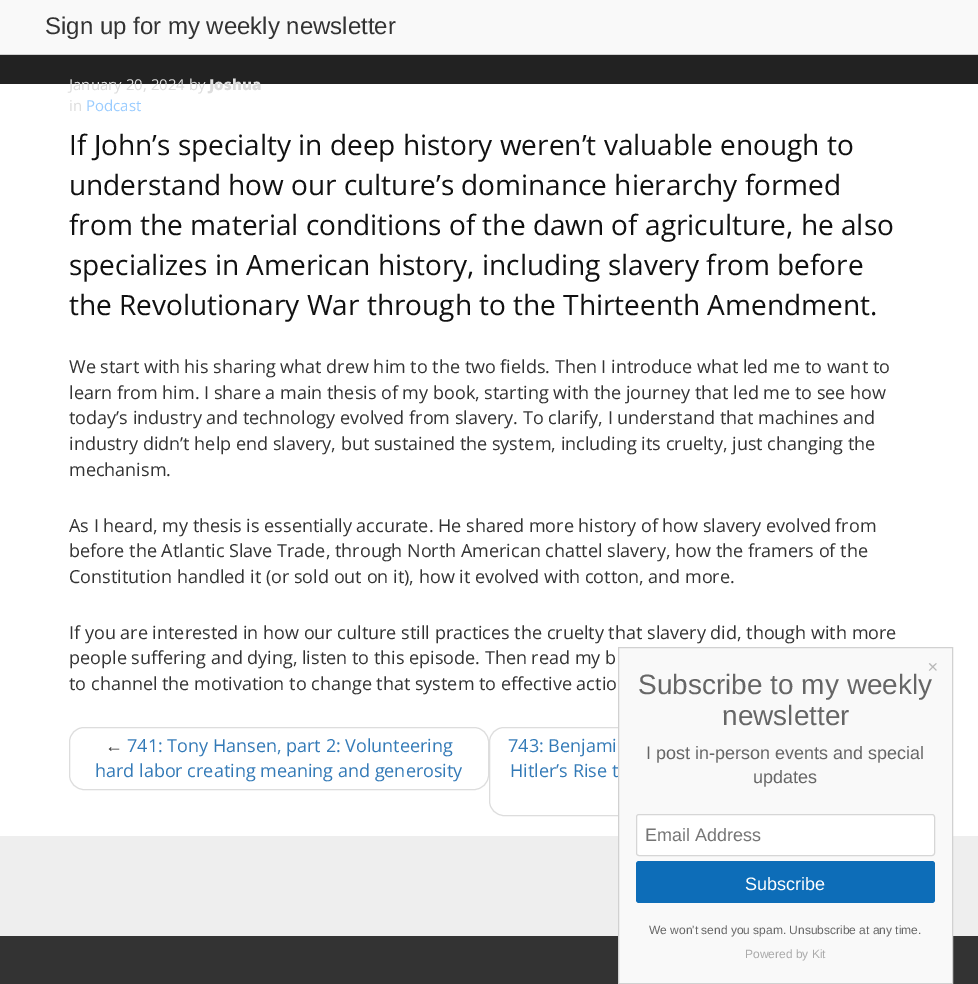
%!PS-Adobe-3.0
%%BoundingBox: 0 0 978 984
%%LanguageLevel: 3
%%Pages: 1
%%EndComments
%%BeginProlog
/setink { dup -16 bitshift 255 div exch dup -8 bitshift 255 and 255 div exch 255 and 255 div setrgbcolor } def
/usefont { [ exch dup neg 0 0 3 -1 roll 0 0 ] selectfont } def
/rrect { 5 dict begin { /r /h /w /y /x } { exch def } forall
  x r add y moveto x w add y 2 copy h add r arct x w add y h add x 1 index r arct
  x y h add x y r arct x y 2 copy exch w add exch r arct closepath end } def
%%EndProlog
%%BeginSetup
<< /PageSize [978 984] >> setpagedevice
%%EndSetup
%%Page: 1 1
0 984 translate 1 -1 scale
4 setmiterlimit
16#FFFFFF setink
0 0 978 984 rectfill
16#F9F9F9 setink
0 0 978 54 rectfill
16#D1D1D1 setink
0 54 978 1 rectfill
/LiberationSans-Regular 24 usefont
16#333333 setink
45 34 moveto (Sign up for my weekly newsletter) show
16#222222 setink
0 55 978 29 rectfill
/OpenSans-Regular 15 usefont
16#DDDDDD setink
69 90 moveto (January 20, 2024 by) show
/OpenSans-ExtraBold 15 usefont
209 90 moveto (Joshua) show
/OpenSans-Regular 15 usefont
69 111 moveto (in) show
16#99CCFF setink
86 111 moveto (Podcast) show
/OpenSans-Regular 28 usefont
16#111111 setink
[
    [(If John’s specialty in deep history weren’t valuable enough to) 69 155]
    [(understand how our culture’s dominance hierarchy formed) 69 195]
    [(from the material conditions of the dawn of agriculture, he also) 69 235]
    [(specializes in American history, including slavery from before) 69 275]
    [(the Revolutionary War through to the Thirteenth Amendment.) 69 315]
] { aload pop moveto show } forall
/OpenSans-Regular 18 usefont
16#333333 setink
[
    [(We start with his sharing what drew him to the two fields. Then I introduce what led me to want to) 69 373]
    [(learn from him. I share a main thesis of my book, starting with the journey that led me to see how) 69 399]
    [(today’s industry and technology evolved from slavery. To clarify, I understand that machines and) 69 424]
    [(industry didn’t help end slavery, but sustained the system, including its cruelty, just changing the) 69 450]
    [(mechanism.) 69 476]
    [(As I heard, my thesis is essentially accurate. He shared more history of how slavery evolved from) 69 532]
    [(before the Atlantic Slave Trade, through North American chattel slavery, how the framers of the) 69 557]
    [(Constitution handled it \(or sold out on it\), how it evolved with cotton, and more.) 69 583]
    [(If you are interested in how our culture still practices the cruelty that slavery did, though with more) 69 639]
    [(people suffering and dying, listen to this episode. Then read my b) 69 664]
    [(to channel the motivation to change that system to effective actio) 69 690]
] { aload pop moveto show } forall
16#DDDDDD setink
69.5 727.5 419 62 14.5 rrect stroke
/LiberationSans-Regular 18 usefont
16#333333 setink
105 752 moveto (←) show
/OpenSans-Regular 18 usefont
16#337AB7 setink
127 752 moveto (741: Tony Hansen, part 2: Volunteering) show
95 777 moveto (hard labor creating meaning and generosity) show
16#DDDDDD setink
489.5 727.5 419 88 14.5 rrect stroke
16#337AB7 setink
508 752 moveto (743: Benjami) show
510 777 moveto (Hitler’s Rise t) show
16#EEEEEE setink
0 836 978 100 rectfill
16#333333 setink
0 936 978 48 rectfill
16#F9F9F9 setink
618.5 647.5 moveto 952.5 647.5 lineto 952.5 983.5 lineto 618.5 983.5 lineto closepath gsave fill grestore
16#D1D1D1 setink
stroke
/DejaVuSans-Regular 14 usefont
16#B8B8B8 setink
927 672 moveto (✕) show
/LiberationSans-Regular 28 usefont
16#666666 setink
638 694 moveto (Subscribe to my weekly) show
722 725 moveto (newsletter) show
/LiberationSans-Regular 18 usefont
646 759 moveto (I post in-person events and special) show
753 783 moveto (updates) show
16#FFFFFF setink
636.5 814.5 298 41 2.5 rrect gsave fill grestore
16#D6D6D6 setink
stroke
16#757575 setink
645 841 moveto (Email Address) show
16#0D6DB8 setink
636 861 299 42 3 rrect fill
16#FFFFFF setink
745 890 moveto (Subscribe) show
/LiberationSans-Regular 12 usefont
16#666666 setink
649 934 moveto (We won't send you spam. Unsubscribe at any time.) show
16#AAAAAA setink
745 958 moveto (Powered by Kit) show
showpage
%%EOF
